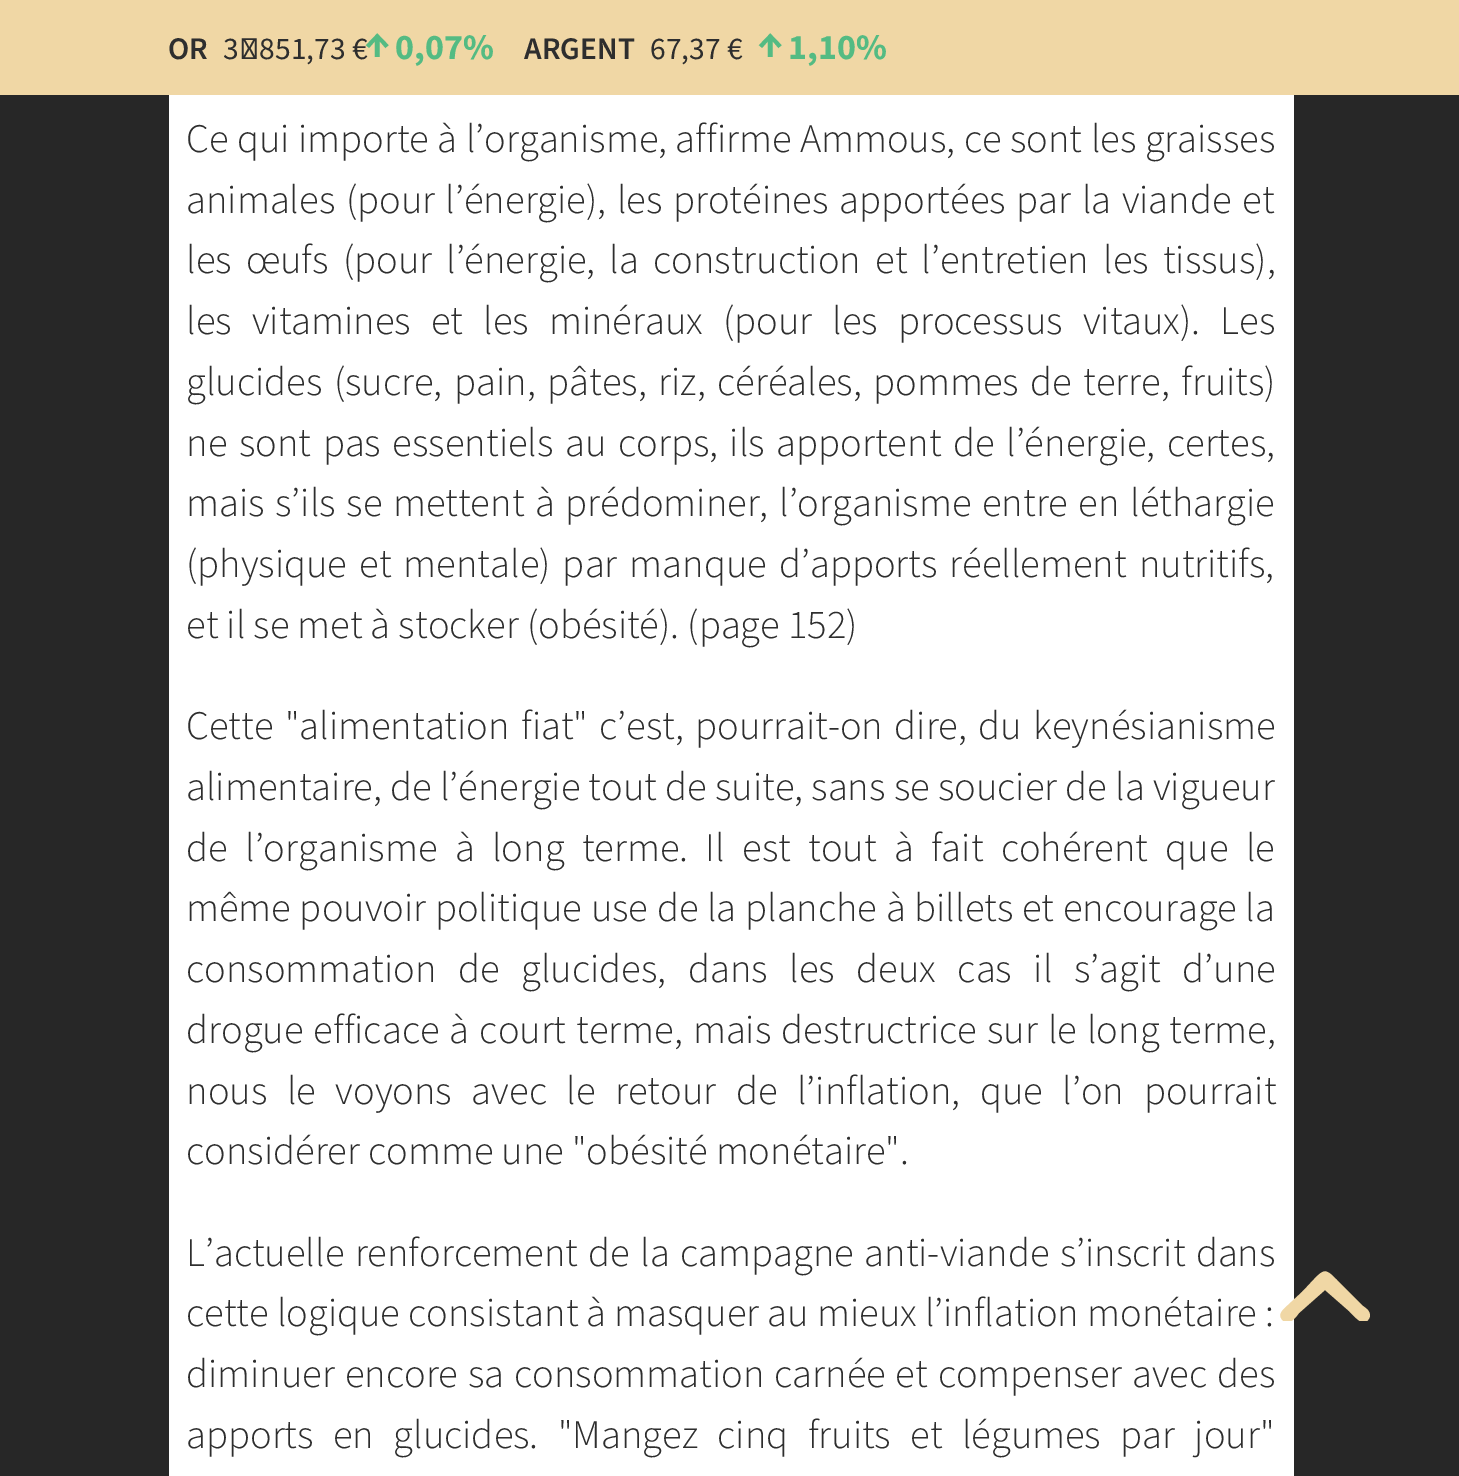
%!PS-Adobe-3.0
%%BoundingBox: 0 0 1459 1476
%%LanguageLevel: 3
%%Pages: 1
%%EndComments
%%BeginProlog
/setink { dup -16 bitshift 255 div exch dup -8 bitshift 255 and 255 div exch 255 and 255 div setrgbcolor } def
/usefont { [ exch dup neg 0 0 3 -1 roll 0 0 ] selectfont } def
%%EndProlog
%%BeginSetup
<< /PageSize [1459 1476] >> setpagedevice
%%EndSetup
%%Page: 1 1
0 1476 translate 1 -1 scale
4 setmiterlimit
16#272727 setink
0 0 1459 1476 rectfill
16#F0D7A5 setink
0 0 1459 95 rectfill
/SourceSans3-SemiBold 31.5 usefont
16#2E2E2E setink
168 59 moveto (OR) show
/SourceSans3-Regular 31.5 usefont
223 59 moveto (3 851,73 €) show
/SourceSans3-Bold 43 usefont
16#54BB83 setink
364 56 moveto (↑) show
/SourceSans3-Bold 36 usefont
395 59 moveto (0,07%) show
/SourceSans3-SemiBold 31.5 usefont
16#2E2E2E setink
524 59 moveto (ARGENT) show
/SourceSans3-Regular 31.5 usefont
650 59 moveto (67,37 €) show
/SourceSans3-Bold 43 usefont
16#54BB83 setink
757 56 moveto (↑) show
/SourceSans3-Bold 36 usefont
788 59 moveto (1,10%) show
16#FFFFFF setink
169 95 1125 1381 rectfill
/SourceSans3-Light 40.5 usefont
16#2E2E2E setink
186 152 moveto 0.4 0 32 (Ce qui importe à l’organisme, affirme Ammous, ce sont les graisses) widthshow
186 213 moveto 2.5 0 32 (animales \(pour l’énergie\), les protéines apportées par la viande et) widthshow
186 273 moveto 6 0 32 (les œufs \(pour l’énergie, la construction et l’entretien les tissus\),) widthshow
186 334 moveto 12 0 32 (les vitamines et les minéraux \(pour les processus vitaux\). Les) widthshow
186 395 moveto 3.5 0 32 (glucides \(sucre, pain, pâtes, riz, céréales, pommes de terre, fruits\)) widthshow
186 456 moveto 3.5 0 32 (ne sont pas essentiels au corps, ils apportent de l’énergie, certes,) widthshow
186 516 moveto 2.5 0 32 (mais s’ils se mettent à prédominer, l’organisme entre en léthargie) widthshow
186 577 moveto 4 0 32 (\(physique et mentale\) par manque d’apports réellement nutritifs,) widthshow
186 638 moveto (et il se met à stocker \(obésité\). \(page 152\)) show
186 739 moveto 3.25 0 32 (Cette "alimentation fiat" c’est, pourrait-on dire, du keynésianisme) widthshow
186 800 moveto 0.1 0 32 (alimentaire, de l’énergie tout de suite, sans se soucier de la vigueur) widthshow
186 861 moveto 9.25 0 32 (de l’organisme à long terme. Il est tout à fait cohérent que le) widthshow
186 921 moveto 0.5 0 32 (même pouvoir politique use de la planche à billets et encourage la) widthshow
186 982 moveto 13.5 0 32 (consommation de glucides, dans les deux cas il s’agit d’une) widthshow
186 1043 moveto 2 0 32 (drogue efficace à court terme, mais destructrice sur le long terme,) widthshow
186 1104 moveto 11.5 0 32 (nous le voyons avec le retour de l’inflation, que l’on pourrait) widthshow
186 1164 moveto (considérer comme une "obésité monétaire".) show
186 1266 moveto 2.25 0 32 (L’actuelle renforcement de la campagne anti-viande s’inscrit dans) widthshow
186 1326 moveto (cette logique consistant à masquer au mieux l’inflation monétaire :) show
186 1387 moveto 1.75 0 32 (diminuer encore sa consommation carnée et compenser avec des) widthshow
186 1448 moveto 11.25 0 32 (apports en glucides. "Mangez cinq fruits et légumes par jour") widthshow
gsave
1280 1271 90 50 rectclip
16#F0D7A5 setink
1370 1316 moveto 1369 1320 1366 1323 1362 1322 curveto 1358 1321 1352 1314 1349 1311 curveto 1325 1290 lineto 1299 1313 lineto 1296 1317 1291 1324 1285 1322 curveto 1283 1321 1282 1320 1281 1318 curveto 1278 1313 1285 1308 1288 1305 curveto 1302 1292 lineto 1329 1264 1321 1265 1349 1292 curveto 1363 1306 lineto 1367 1309 1370 1311 1370 1316 curveto closepath fill
grestore
showpage
%%EOF
